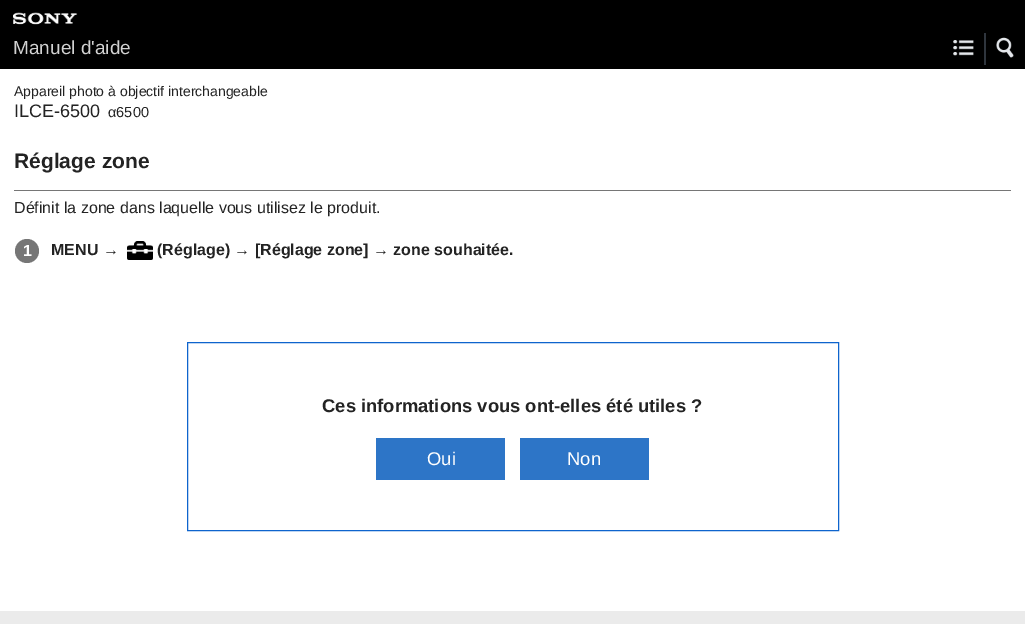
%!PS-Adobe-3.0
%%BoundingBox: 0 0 1025 624
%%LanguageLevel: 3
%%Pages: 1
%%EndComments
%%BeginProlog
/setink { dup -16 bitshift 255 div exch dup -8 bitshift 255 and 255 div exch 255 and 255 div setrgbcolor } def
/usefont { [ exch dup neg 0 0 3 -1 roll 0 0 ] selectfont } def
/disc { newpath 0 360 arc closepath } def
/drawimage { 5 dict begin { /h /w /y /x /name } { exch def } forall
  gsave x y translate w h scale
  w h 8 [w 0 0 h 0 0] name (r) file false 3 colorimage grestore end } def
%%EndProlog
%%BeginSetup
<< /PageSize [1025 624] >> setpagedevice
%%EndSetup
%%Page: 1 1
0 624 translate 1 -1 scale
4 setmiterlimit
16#FFFFFF setink
0 0 1025 624 rectfill
16#000000 setink
0 0 1025 69 rectfill
(img1.raw) 13 12 65 13 drawimage
/LiberationSans-Regular 19 usefont
16#D2D2D2 setink
13 54 moveto (Manuel d'aide) show
/LiberationSans-Regular 14 usefont
16#232323 setink
14 96 moveto (Appareil photo à objectif interchangeable) show
/LiberationSans-Regular 18 usefont
14 117 moveto (ILCE-6500) show
/LiberationSans-Regular 14.5 usefont
108 117 moveto (α6500) show
16#2F353D setink
984 33 2 32 rectfill
(img2.raw) 953 40 21 16 drawimage
(img3.raw) 996 37 18 21 drawimage
16#767676 setink
14 190 997 1 rectfill
/LiberationSans-Bold 21 usefont
16#232323 setink
14 168 moveto (Réglage zone) show
/LiberationSans-Regular 16 usefont
14 213 moveto (Définit la zone dans laquelle vous utilisez le produit.) show
16#767676 setink
27 251 12 disc fill
/LiberationSans-Bold 16 usefont
16#FFFFFF setink
23 256 moveto (1) show
16#232323 setink
51 255 moveto (MENU →) show
(img4.raw) 127 241 26 19 drawimage
157 255 moveto (\(Réglage\) → [Réglage zone] → zone souhaitée.) show
16#0E64CD setink
187.5 342.5 651 188 rectstroke
/LiberationSans-Bold 18.4 usefont
16#232323 setink
322 412 moveto (Ces informations vous ont-elles été utiles ?) show
16#2D75C7 setink
376 438 129 42 rectfill
/LiberationSans-Regular 18.4 usefont
16#FFFFFF setink
427 465 moveto (Oui) show
16#2D75C7 setink
520 438 129 42 rectfill
16#FFFFFF setink
567 465 moveto (Non) show
16#EBEBEB setink
0 611 1025 13 rectfill
showpage
%%EOF
